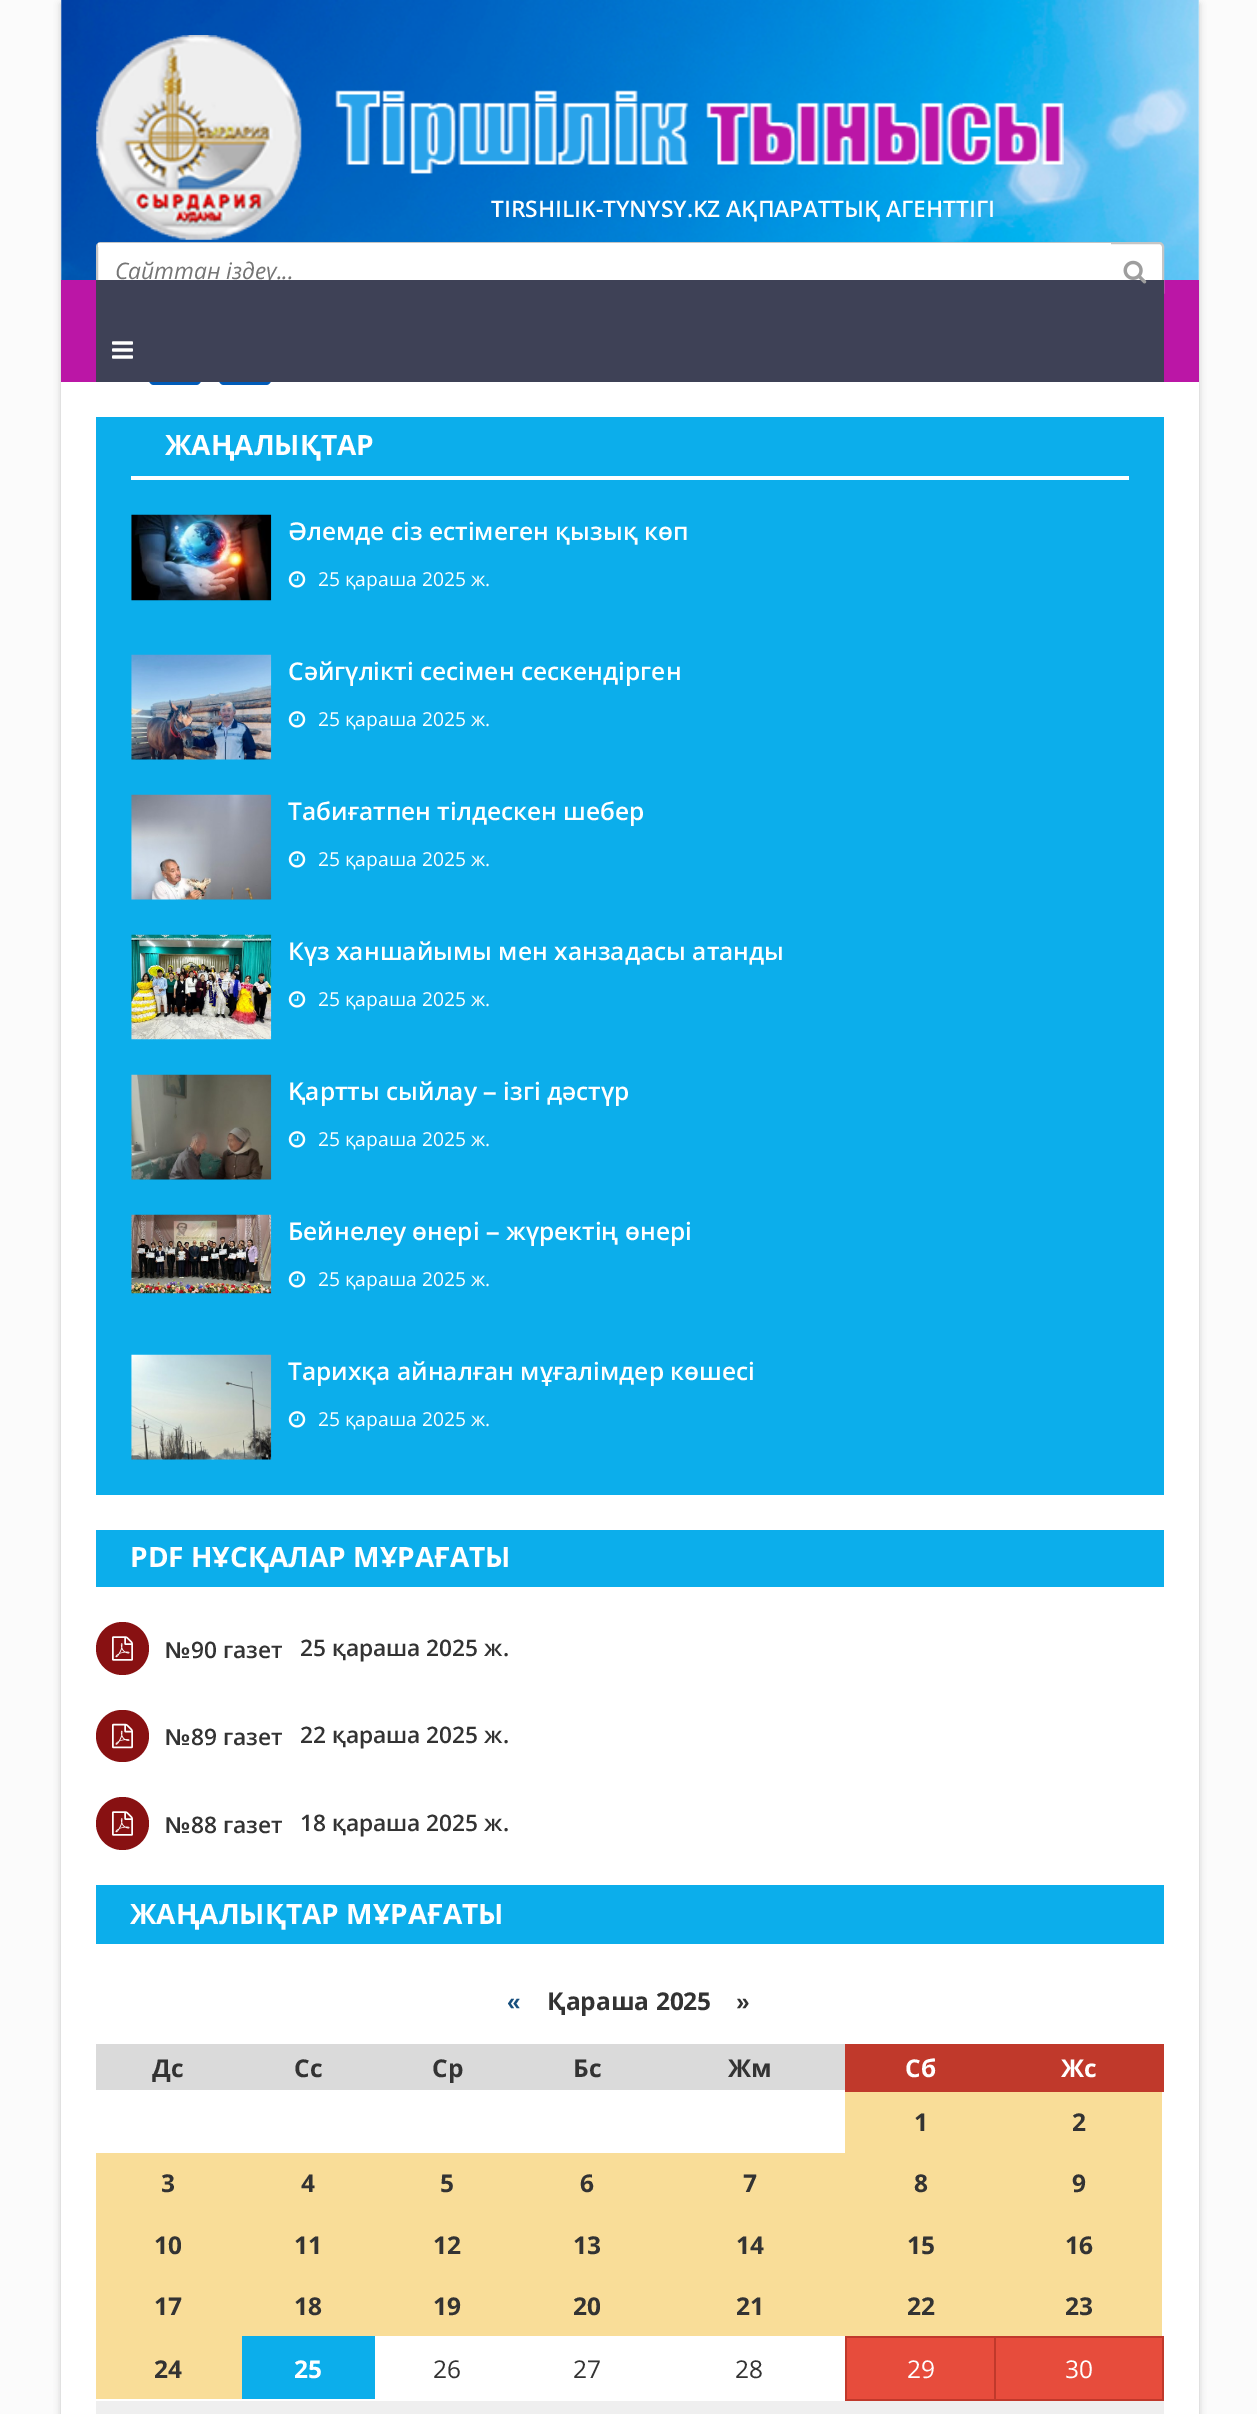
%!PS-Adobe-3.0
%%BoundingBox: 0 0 1257 2414
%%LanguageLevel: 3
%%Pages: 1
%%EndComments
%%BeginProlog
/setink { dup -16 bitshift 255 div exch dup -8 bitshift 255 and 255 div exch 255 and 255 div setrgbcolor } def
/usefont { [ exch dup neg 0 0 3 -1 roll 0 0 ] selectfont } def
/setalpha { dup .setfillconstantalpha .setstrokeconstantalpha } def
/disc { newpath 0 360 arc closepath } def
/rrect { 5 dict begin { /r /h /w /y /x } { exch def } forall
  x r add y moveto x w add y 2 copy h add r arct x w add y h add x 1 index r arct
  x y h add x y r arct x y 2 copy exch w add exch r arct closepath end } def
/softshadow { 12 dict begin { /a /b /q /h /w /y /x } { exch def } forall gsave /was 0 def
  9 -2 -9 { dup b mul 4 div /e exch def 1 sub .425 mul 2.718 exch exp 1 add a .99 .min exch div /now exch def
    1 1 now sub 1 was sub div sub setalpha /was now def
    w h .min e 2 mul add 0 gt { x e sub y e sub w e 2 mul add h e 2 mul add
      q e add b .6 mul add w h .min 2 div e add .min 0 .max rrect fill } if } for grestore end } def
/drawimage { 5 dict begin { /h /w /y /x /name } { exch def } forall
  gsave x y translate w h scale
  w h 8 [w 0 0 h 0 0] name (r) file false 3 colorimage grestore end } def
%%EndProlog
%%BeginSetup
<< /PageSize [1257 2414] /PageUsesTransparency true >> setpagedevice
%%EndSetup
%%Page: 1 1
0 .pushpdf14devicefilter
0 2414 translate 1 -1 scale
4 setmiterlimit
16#FBFBFB setink
0 0 1257 2414 rectfill
16#000000 setink
61 4 1138 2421 0 3.5 0.2 softshadow
16#FFFFFF setink
61 0 1138 2414 rectfill
(img1.raw) 61 0 1138 280 drawimage
(img2.raw) 96 35 968 205 drawimage
/OpenSans-SemiBold 22.75 usefont
491 217 moveto (TIRSHILIK-TYNYSY.KZ АҚПАРАТТЫҚ АГЕНТТІГІ) show
16#BB16A6 setink
61 280 1138 102 rectfill
16#FFFFFF setink
97 243 1066 54 4 rrect gsave fill grestore
16#C5C5C5 setink
2 setlinewidth
stroke
16#FFFFFF setink
98 243 1013 4 rectfill
/OpenSans-Italic 22.75 usefont
16#757575 setink
115 279 moveto (Сайттан іздеу...) show
16#005BB8 setink
149 333 52 52 5 rrect fill
219 333 52 52 5 rrect fill
16#3E4156 setink
96 280 1068 102 rectfill
(img3.raw) 1123 260 24 24 drawimage
(img4.raw) 112 341 21 18 drawimage
16#0CAEEB setink
96 417 1068 1078 rectfill
16#FFFFFF setink
131 476 998 4 rectfill
/OpenSans-Bold 28 usefont
165 455 moveto (ЖАҢАЛЫҚТАР) show
(img5.raw) 131 514 141 87 drawimage
/OpenSans-SemiBold 24.5 usefont
288 540 moveto (Әлемде сіз естімеген қызық көп) show
(img6.raw) 288 571 18 17 drawimage
/OpenSans-Regular 19.25 usefont
318 586 moveto (25 қараша 2025 ж.) show
(img7.raw) 131 654 141 106 drawimage
/OpenSans-SemiBold 24.5 usefont
288 680 moveto (Сәйгүлікті сесімен сескендірген) show
(img6.raw) 288 711 18 17 drawimage
/OpenSans-Regular 19.25 usefont
318 726 moveto (25 қараша 2025 ж.) show
(img8.raw) 131 794 141 106 drawimage
/OpenSans-SemiBold 24.5 usefont
288 820 moveto (Табиғатпен тілдескен шебер) show
(img6.raw) 288 851 18 17 drawimage
/OpenSans-Regular 19.25 usefont
318 866 moveto (25 қараша 2025 ж.) show
(img9.raw) 131 934 141 106 drawimage
/OpenSans-SemiBold 24.5 usefont
288 960 moveto (Күз ханшайымы мен ханзадасы атанды) show
(img6.raw) 288 991 18 17 drawimage
/OpenSans-Regular 19.25 usefont
318 1006 moveto (25 қараша 2025 ж.) show
(img10.raw) 131 1074 141 106 drawimage
/OpenSans-SemiBold 24.5 usefont
288 1100 moveto (Қартты сыйлау) show
/LiberationSans-Bold 24.5 usefont
483 1100 moveto (–) show
/OpenSans-SemiBold 24.5 usefont
503 1100 moveto (ізгі дәстүр) show
(img6.raw) 288 1131 18 17 drawimage
/OpenSans-Regular 19.25 usefont
318 1146 moveto (25 қараша 2025 ж.) show
(img11.raw) 131 1214 141 80 drawimage
/OpenSans-SemiBold 24.5 usefont
288 1240 moveto (Бейнелеу өнері) show
/LiberationSans-Bold 24.5 usefont
486 1240 moveto (–) show
/OpenSans-SemiBold 24.5 usefont
506 1240 moveto (жүректің өнері) show
(img6.raw) 288 1271 18 17 drawimage
/OpenSans-Regular 19.25 usefont
318 1286 moveto (25 қараша 2025 ж.) show
(img12.raw) 131 1354 141 106 drawimage
/OpenSans-SemiBold 24.5 usefont
288 1380 moveto (Тарихқа айналған мұғалімдер көшесі) show
(img6.raw) 288 1411 18 17 drawimage
/OpenSans-Regular 19.25 usefont
318 1426 moveto (25 қараша 2025 ж.) show
16#0CAEEB setink
96 1530 1068 57 rectfill
/OpenSans-Bold 28 usefont
16#FFFFFF setink
130 1567 moveto (PDF НҰСҚАЛАР МҰРАҒАТЫ) show
16#881112 setink
122.5 1648.5 26.5 disc fill
(img13.raw) 112 1636 21 25 drawimage
/LiberationSans-Bold 22.75 usefont
16#333333 setink
165 1658 moveto (№) show
/OpenSans-SemiBold 22.75 usefont
191 1658 moveto (90 газет) show
300 1656 moveto (25 қараша 2025 ж.) show
16#881112 setink
96 1710 53 52 26 rrect fill
(img14.raw) 112 1723 21 26 drawimage
/LiberationSans-Bold 22.75 usefont
16#333333 setink
165 1745 moveto (№) show
/OpenSans-SemiBold 22.75 usefont
191 1745 moveto (89 газет) show
300 1743 moveto (22 қараша 2025 ж.) show
16#881112 setink
122.5 1823.5 26.5 disc fill
(img13.raw) 112 1811 21 25 drawimage
/LiberationSans-Bold 22.75 usefont
16#333333 setink
165 1833 moveto (№) show
/OpenSans-SemiBold 22.75 usefont
191 1833 moveto (88 газет) show
300 1831 moveto (18 қараша 2025 ж.) show
16#0CAEEB setink
96 1885 1068 59 rectfill
/OpenSans-Bold 28 usefont
16#FFFFFF setink
130 1924 moveto (ЖАҢАЛЫҚТАР МҰРАҒАТЫ) show
/LiberationSans-Bold 24.5 usefont
16#174F7E setink
507 2010 moveto («) show
/OpenSans-Bold 24.5 usefont
16#333333 setink
547 2010 moveto (Қараша 2025) show
/LiberationSans-Bold 24.5 usefont
736 2010 moveto (») show
16#DADADA setink
96 2044 749 46 rectfill
/OpenSans-Bold 24.5 usefont
16#333333 setink
[
    [(Дс) 152 2077]
    [(Сс) 294 2077]
    [(Ср) 432 2077]
    [(Бс) 573 2077]
    [(Жм) 728 2077]
] { aload pop moveto show } forall
16#C0392B setink
845 2044 151 46 rectfill
16#FFFFFF setink
905 2077 moveto (Сб) show
[
    [996 2046 166 44 16#C0392B]
    [994 2044 170 2 16#C0392B]
    [1162 2044 2 47 16#C0392B]
    [845 2090 319 2 16#C0392B]
] { aload pop setink rectfill } forall
16#FFFFFF setink
1061 2077 moveto (Жс) show
16#F9DD98 setink
845 2092 317 61 rectfill
16#333333 setink
914 2131 moveto (1) show
1072 2131 moveto (2) show
16#F9DD98 setink
96 2153 1066 61 rectfill
16#333333 setink
[
    [(3) 161 2192]
    [(4) 301 2192]
    [(5) 440 2192]
    [(6) 580 2192]
    [(7) 743 2192]
    [(8) 914 2192]
    [(9) 1072 2192]
] { aload pop moveto show } forall
16#F9DD98 setink
96 2214 1066 61 rectfill
16#333333 setink
[
    [(10) 154 2254]
    [(11) 294 2254]
    [(12) 433 2254]
    [(13) 573 2254]
    [(14) 736 2254]
    [(15) 907 2254]
    [(16) 1065 2254]
] { aload pop moveto show } forall
16#F9DD98 setink
96 2275 1066 61 rectfill
16#333333 setink
[
    [(17) 154 2315]
    [(18) 294 2315]
    [(19) 433 2315]
    [(20) 573 2315]
    [(21) 736 2315]
    [(22) 907 2315]
    [(23) 1065 2315]
] { aload pop moveto show } forall
16#F9DD98 setink
96 2336 146 63 rectfill
16#333333 setink
154 2378 moveto (24) show
16#0CAEEB setink
242 2336 133 63 rectfill
16#FFFFFF setink
294 2378 moveto (25) show
/OpenSans-Regular 24.5 usefont
16#333333 setink
[
    [(26) 433 2378]
    [(27) 573 2378]
    [(28) 735 2378]
] { aload pop moveto show } forall
[
    [847 2338 147 61 16#E74C3C]
    [994 2336 170 2 16#C0392B]
    [1162 2336 2 65 16#C0392B]
    [994 2399 170 2 16#C0392B]
    [994 2336 2 65 16#C0392B]
    [845 2336 151 2 16#C0392B]
    [845 2399 151 2 16#C0392B]
    [845 2336 2 65 16#C0392B]
] { aload pop setink rectfill } forall
16#FFFFFF setink
907 2378 moveto (29) show
16#E74C3C setink
996 2338 166 61 rectfill
16#FFFFFF setink
1065 2378 moveto (30) show
16#EFEFEF setink
96 2401 1068 13 rectfill
.poppdf14devicefilter showpage
%%EOF
